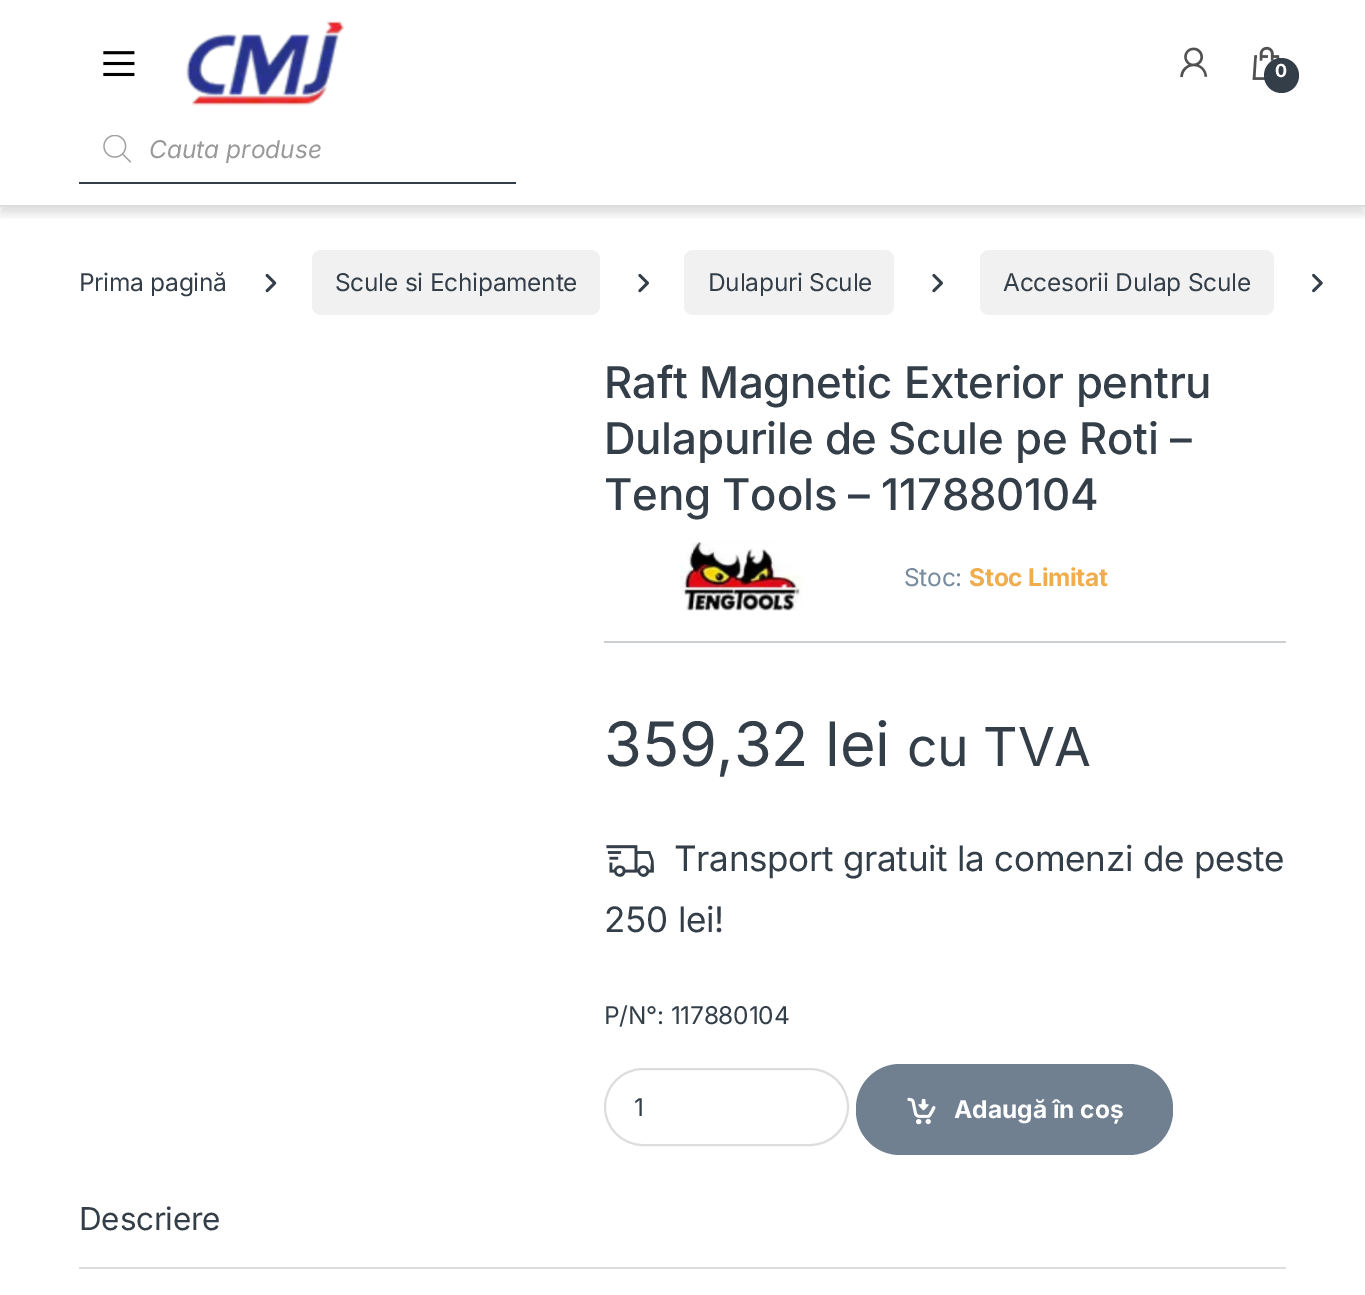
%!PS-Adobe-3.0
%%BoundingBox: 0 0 1365 1295
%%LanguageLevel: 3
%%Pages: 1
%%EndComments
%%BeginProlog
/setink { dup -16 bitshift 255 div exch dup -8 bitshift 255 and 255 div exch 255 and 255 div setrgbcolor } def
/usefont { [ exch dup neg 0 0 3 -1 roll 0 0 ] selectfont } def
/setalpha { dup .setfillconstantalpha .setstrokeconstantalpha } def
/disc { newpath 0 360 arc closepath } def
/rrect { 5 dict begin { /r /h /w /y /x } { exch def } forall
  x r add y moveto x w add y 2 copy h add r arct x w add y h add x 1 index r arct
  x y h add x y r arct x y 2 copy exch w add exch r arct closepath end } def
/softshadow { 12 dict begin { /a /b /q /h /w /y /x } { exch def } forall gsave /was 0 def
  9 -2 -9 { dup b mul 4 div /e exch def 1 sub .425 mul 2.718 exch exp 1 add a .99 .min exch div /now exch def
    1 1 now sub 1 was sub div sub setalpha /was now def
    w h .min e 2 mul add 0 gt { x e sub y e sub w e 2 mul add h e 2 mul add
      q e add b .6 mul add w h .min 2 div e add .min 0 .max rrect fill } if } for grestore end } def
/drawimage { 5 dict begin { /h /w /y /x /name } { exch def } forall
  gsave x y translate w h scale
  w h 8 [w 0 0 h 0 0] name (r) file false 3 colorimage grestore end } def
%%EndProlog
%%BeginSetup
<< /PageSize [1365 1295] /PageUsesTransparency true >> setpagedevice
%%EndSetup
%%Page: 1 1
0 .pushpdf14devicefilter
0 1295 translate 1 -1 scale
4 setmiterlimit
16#FFFFFF setink
0 0 1365 1295 rectfill
gsave
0 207 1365 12 rectclip
16#000000 setink
0 7 1365 207 0 5 0.12 softshadow
grestore
16#DDDDDD setink
0 205 1365 2 rectfill
(img1.raw) 103 51 32 26 drawimage
(img2.raw) 186 20 158 86 drawimage
(img3.raw) 1180 47 28 31 drawimage
(img4.raw) 1252 46 28 34 drawimage
16#333E48 setink
1281.5 75.5 17.5 disc fill
/Inter-Bold 18 usefont
16#FFFFFF setink
1275 77 moveto -0.25 0 (0) ashow
(img5.raw) 103 135 29 28 drawimage
16#333E48 setink
79 182 437 2 rectfill
/Inter-Italic 24.5 usefont
16#999999 setink
149 158 moveto (Cauta produse) show
/Inter-Regular 24.5 usefont
16#333E48 setink
79 291 moveto -0.25 0 (Prima pagină) ashow
(img6.raw) 265 273 12 20 drawimage
16#F1F1F1 setink
312 250 288 65 9 rrect fill
16#333E48 setink
335 291 moveto -0.25 0 (Scule si Echipamente) ashow
(img7.raw) 638 273 11 20 drawimage
16#F1F1F1 setink
684 250 210 65 9 rrect fill
16#333E48 setink
708 291 moveto -0.25 0 (Dulapuri Scule) ashow
(img7.raw) 932 273 11 20 drawimage
16#F1F1F1 setink
980 250 294 65 9 rrect fill
16#333E48 setink
1003 291 moveto -0.25 0 (Accesorii Dulap Scule) ashow
(img8.raw) 1312 273 11 20 drawimage
/Inter-Medium 43.75 usefont
604 398 moveto -0.25 0 (Raft Magnetic Exterior pentru) ashow
604 454 moveto -0.25 0 (Dulapurile de Scule pe Roti –) ashow
604 510 moveto -0.25 0 (Teng Tools – 117880104) ashow
(img9.raw) 680 542 124 69 drawimage
/Inter-Regular 24.5 usefont
16#768B9E setink
904 586 moveto -0.25 0 (Stoc:) ashow
/Inter-Bold 24.5 usefont
16#F0AD4E setink
969 586 moveto -0.25 0 (Stoc Limitat) ashow
16#CCCFD1 setink
604 641 682 2 rectfill
/Inter-Regular 61.25 usefont
16#333E48 setink
604 766 moveto -0.25 0 (359,32 lei) ashow
/Inter-Regular 53.5 usefont
907 766 moveto -0.25 0 (cu TVA) ashow
(img10.raw) 606 845 48 32 drawimage
/Inter-Regular 35 usefont
674 871 moveto -0.25 0 (Transport gratuit la comenzi de peste) ashow
604 932 moveto -0.25 0 (250 lei!) ashow
/Inter-Regular 24.5 usefont
604 1024 moveto -0.25 0 (P/N°: 117880104) ashow
16#DDDDDD setink
2 setlinewidth
605 1069 243 76 38 rrect stroke
16#333E48 setink
634 1116 moveto (1) show
16#708090 setink
856 1064 317 91 44 rrect fill
(img11.raw) 907 1097 29 28 drawimage
/Inter-Bold 24.5 usefont
16#FFFFFF setink
954 1118 moveto (Adaugă în coș) show
/Inter-Regular 31.5 usefont
16#333E48 setink
79 1230 moveto -0.25 0 (Descriere) ashow
16#DDDDDD setink
79 1267 1207 2 rectfill
.poppdf14devicefilter showpage
%%EOF
